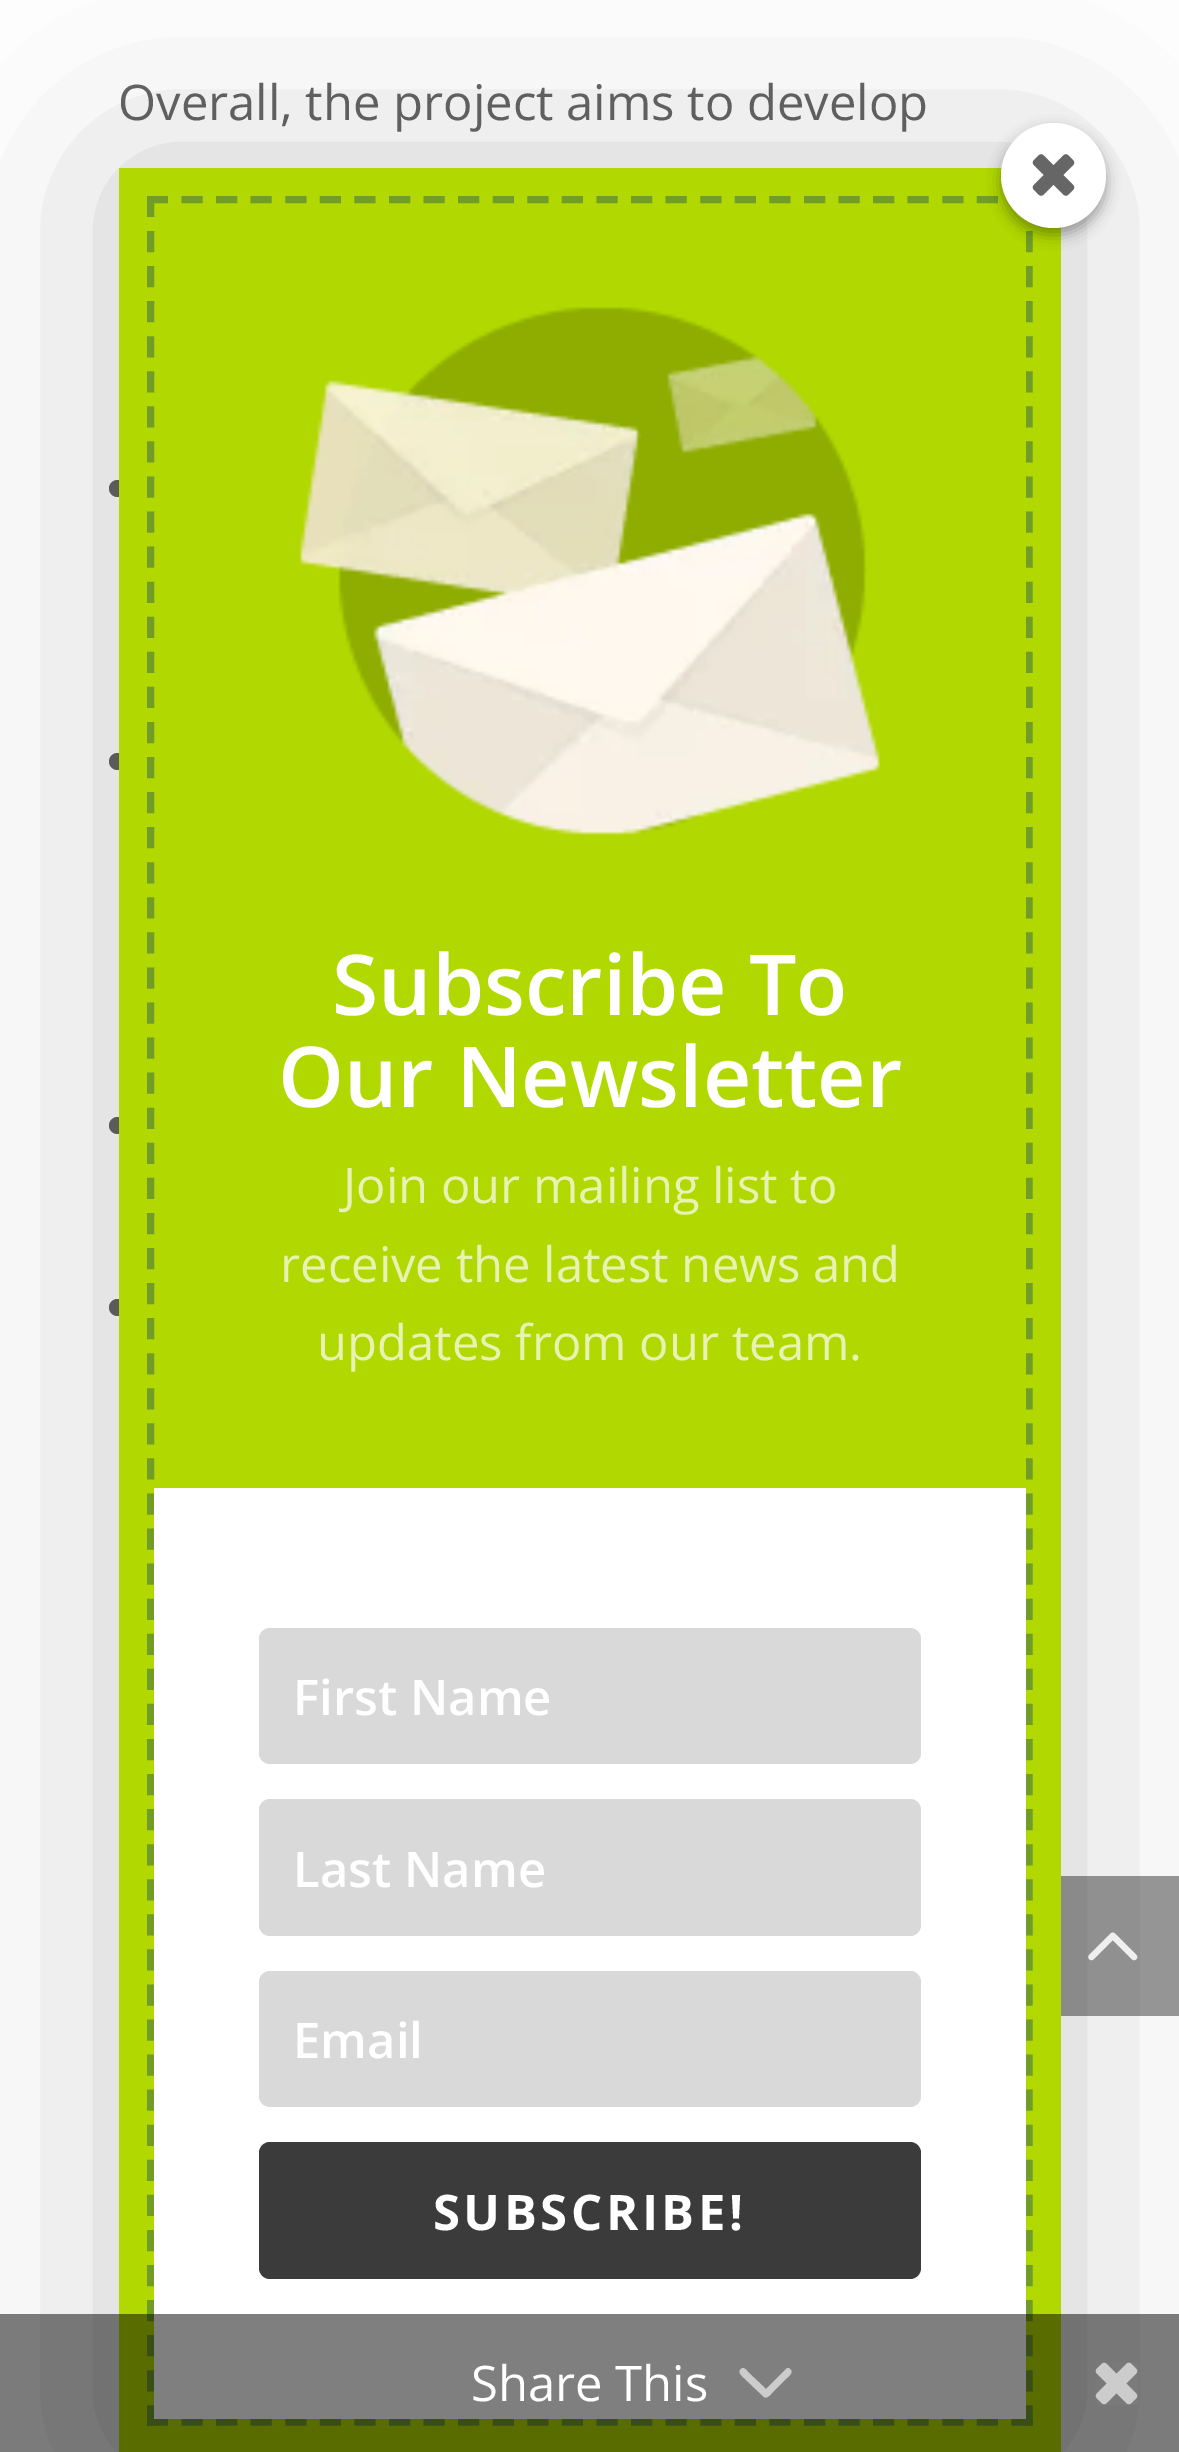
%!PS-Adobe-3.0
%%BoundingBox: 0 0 1179 2452
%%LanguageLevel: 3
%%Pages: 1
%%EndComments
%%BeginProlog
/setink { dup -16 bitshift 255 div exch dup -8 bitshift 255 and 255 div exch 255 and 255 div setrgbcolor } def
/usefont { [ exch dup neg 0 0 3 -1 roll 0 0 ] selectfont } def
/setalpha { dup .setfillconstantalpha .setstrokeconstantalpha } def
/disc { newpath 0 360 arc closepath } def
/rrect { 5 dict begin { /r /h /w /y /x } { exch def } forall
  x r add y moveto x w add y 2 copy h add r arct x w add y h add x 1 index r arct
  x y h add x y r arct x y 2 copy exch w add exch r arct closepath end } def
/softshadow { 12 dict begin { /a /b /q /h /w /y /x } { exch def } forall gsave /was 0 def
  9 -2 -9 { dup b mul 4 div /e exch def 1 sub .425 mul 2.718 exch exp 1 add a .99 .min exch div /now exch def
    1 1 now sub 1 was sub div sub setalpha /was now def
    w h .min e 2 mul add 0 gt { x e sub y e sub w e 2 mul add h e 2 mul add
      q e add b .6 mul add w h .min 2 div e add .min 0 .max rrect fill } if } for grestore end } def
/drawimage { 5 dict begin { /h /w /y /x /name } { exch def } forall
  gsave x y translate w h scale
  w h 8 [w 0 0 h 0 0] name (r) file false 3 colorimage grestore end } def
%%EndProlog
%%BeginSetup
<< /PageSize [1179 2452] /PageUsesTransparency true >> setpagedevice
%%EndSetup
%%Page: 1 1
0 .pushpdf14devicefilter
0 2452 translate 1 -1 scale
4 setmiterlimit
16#FFFFFF setink
0 0 1179 2452 rectfill
/OpenSans-Regular 49 usefont
16#666666 setink
118 120 moveto (Overall, the project aims to develop) show
117.5 488.5 8.5 disc fill
117.5 761.5 8.5 disc fill
117.5 1125.5 8.5 disc fill
117.5 1307.5 8.5 disc fill
16#999999 setink
1061 1876 118 140 rectfill
(img1.raw) 1088 1932 50 29 drawimage
16#000000 setink
119 168 942 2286 0 105 0.2 softshadow
16#B1D800 setink
119 168 942 2284 rectfill
16#719C28 setink
7 setlinewidth
[21 13.58] 0 setdash
147 199.5 moveto 1032.5 199.5 lineto stroke
[21 14.07] 0 setdash
1029 196 moveto 1029 2425.5 lineto stroke
16#B1D800 setink
1025 203 1 1277 rectfill
16#000000 setink
1001 130 105 105 52.5 7 0.34 softshadow
16#FFFFFF setink
1053.5 175.5 52.5 disc fill
(img2.raw) 1032 154 43 42 drawimage
16#719C28 setink
[21 13.58] 0 setdash
147 2422 moveto 1032.5 2422 lineto stroke
[21 14.07] 0 setdash
150.5 196 moveto 150.5 2425.5 lineto stroke
(img3.raw) 299 307 581 528 drawimage
/OpenSans-SemiBold 84 usefont
16#FFFFFF setink
332 1015 moveto (Subscribe To) show
278 1107 moveto (Our Newsletter) show
/OpenSans-Regular 49 usefont
16#E8F3B3 setink
[
    [(Join our mailing list to) 343 1203]
    [(receive the latest news and) 280 1282]
    [(updates from our team.) 317 1360]
] { aload pop moveto show } forall
16#FFFFFF setink
154 1488 872 931 rectfill
16#D9D9D9 setink
259 1628 662 136 11 rrect fill
/OpenSans-SemiBold 49 usefont
16#FFFFFF setink
293 1715 moveto (First Name) show
16#D9D9D9 setink
259 1799 662 137 11 rrect fill
16#FFFFFF setink
293 1887 moveto (Last Name) show
16#D9D9D9 setink
259 1971 662 136 11 rrect fill
16#FFFFFF setink
293 2058 moveto (Email) show
16#3B3B3B setink
259 2142 662 137 11 rrect fill
/OpenSans-Bold 49 usefont
16#FFFFFF setink
433 2230 moveto 3.5 0 (SUBSCRIBE!) ashow
0.5 setalpha
16#000000 setink
0 2314 1179 138 rectfill
/OpenSans-Regular 49 usefont
1 setalpha
16#FFFFFF setink
471 2401 moveto (Share This) show
16#CCCCCC setink
786 2369 moveto 766 2389 lineto 749 2373 lineto 747 2371 744 2366 741 2369 curveto 737 2372 742 2376 744 2378 curveto 764 2397 lineto 767 2399 770 2395 772 2393 curveto 787 2378 lineto 789 2376 793 2373 791 2370 curveto 789 2368 lineto 788 2368 787 2368 786 2369 curveto closepath fill
(img4.raw) 1095 2362 43 43 drawimage
.poppdf14devicefilter showpage
%%EOF
